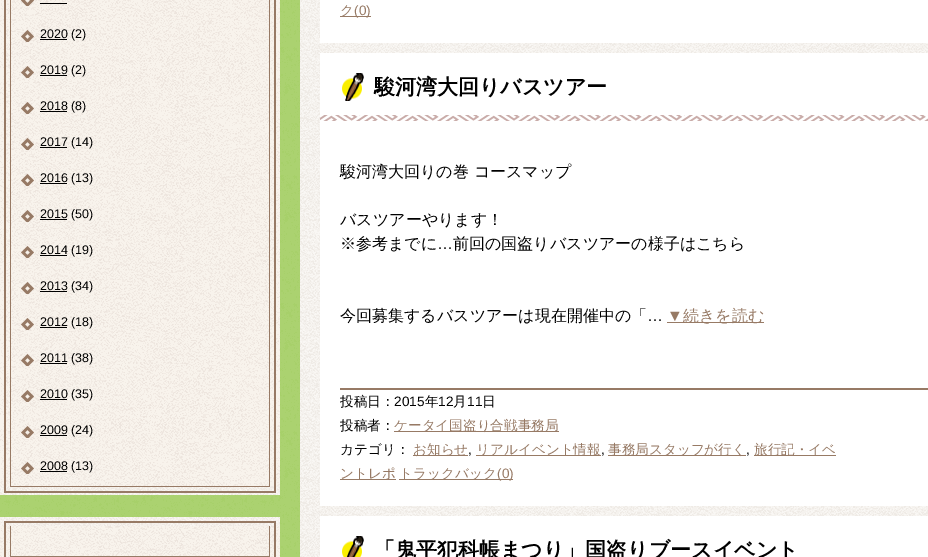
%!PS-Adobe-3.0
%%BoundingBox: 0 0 928 557
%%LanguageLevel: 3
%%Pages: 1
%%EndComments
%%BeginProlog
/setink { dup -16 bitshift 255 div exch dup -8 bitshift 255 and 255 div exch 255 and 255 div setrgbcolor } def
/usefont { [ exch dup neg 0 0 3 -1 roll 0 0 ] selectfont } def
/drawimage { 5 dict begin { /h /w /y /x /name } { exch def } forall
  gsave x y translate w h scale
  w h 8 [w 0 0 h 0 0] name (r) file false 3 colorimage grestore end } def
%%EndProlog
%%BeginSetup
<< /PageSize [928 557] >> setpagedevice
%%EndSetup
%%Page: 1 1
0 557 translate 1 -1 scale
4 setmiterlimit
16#FFFFFF setink
0 0 928 557 rectfill
(img1.raw) 0 0 300 557 drawimage
(img2.raw) 0 0 280 486 drawimage
(img3.raw) 21 0 13 6 drawimage
16#000000 setink
40 3 27 1 rectfill
(img4.raw) 21 30 13 12 drawimage
40 39 27 1 rectfill
/LiberationSans-Regular 12.5 usefont
40 38 moveto (2020 \(2\)) show
(img5.raw) 21 66 13 12 drawimage
40 75 27 1 rectfill
40 74 moveto (2019 \(2\)) show
(img6.raw) 21 102 13 12 drawimage
40 111 27 1 rectfill
40 110 moveto (2018 \(8\)) show
(img7.raw) 21 138 13 12 drawimage
40 147 27 1 rectfill
40 146 moveto (2017 \(14\)) show
(img8.raw) 21 174 13 12 drawimage
40 183 27 1 rectfill
40 182 moveto (2016 \(13\)) show
(img9.raw) 21 210 13 12 drawimage
40 219 27 1 rectfill
40 218 moveto (2015 \(50\)) show
(img10.raw) 21 246 13 12 drawimage
40 255 27 1 rectfill
40 254 moveto (2014 \(19\)) show
(img11.raw) 21 282 13 12 drawimage
40 291 27 1 rectfill
40 290 moveto (2013 \(34\)) show
(img12.raw) 21 318 13 12 drawimage
40 327 27 1 rectfill
40 326 moveto (2012 \(18\)) show
(img13.raw) 21 354 13 12 drawimage
40 363 27 1 rectfill
40 362 moveto (2011 \(38\)) show
(img14.raw) 21 390 13 12 drawimage
40 399 27 1 rectfill
40 398 moveto (2010 \(35\)) show
(img15.raw) 21 426 13 12 drawimage
40 435 27 1 rectfill
40 434 moveto (2009 \(24\)) show
(img16.raw) 21 462 13 12 drawimage
40 471 27 1 rectfill
40 470 moveto (2008 \(13\)) show
(img17.raw) 0 486 280 9 drawimage
(img18.raw) 0 526 280 31 drawimage
(img19.raw) 0 517 280 9 drawimage
(img20.raw) 0 556 273 1 drawimage
(img21.raw) 300 0 628 557 drawimage
16#FFFFFF setink
320 0 608 43 rectfill
16#977A65 setink
340 16 31 1 rectfill
/WenQuanYiZenHei-Medium 13.6 usefont
340 15 moveto (ク) show
/LiberationSans-Regular 13.6 usefont
354 15 moveto (\(0\)) show
16#FFFFFF setink
320 53 608 453 rectfill
(img22.raw) 320 115 608 6 drawimage
(img23.raw) 342 73 22 28 drawimage
/WenQuanYiZenHei-Bold 21 usefont
16#000000 setink
374 94 moveto (駿河湾大回りバスツアー) show
/WenQuanYiZenHei-Medium 16 usefont
[
    [(駿河湾大回りの巻 コースマップ) 340 177]
    [(バスツアーやります！) 340 225]
    [(※参考までに) 340 249]
] { aload pop moveto show } forall
/LiberationSans-Regular 16 usefont
437 249 moveto (…) show
/WenQuanYiZenHei-Medium 16 usefont
453 249 moveto (前回の国盗りバスツアーの様子はこちら) show
340 321 moveto (今回募集するバスツアーは現在開催中の「) show
/LiberationSans-Regular 16 usefont
647 321 moveto (…) show
16#977A65 setink
667 321 moveto (▼) show
667 322 97 1 rectfill
/WenQuanYiZenHei-Medium 16 usefont
683 321 moveto (続きを読む) show
340 388 588 2 rectfill
/WenQuanYiZenHei-Medium 13.6 usefont
16#000000 setink
340 406 moveto (投稿日：) show
/LiberationSans-Regular 13.6 usefont
394 406 moveto (2015) show
/WenQuanYiZenHei-Medium 13.6 usefont
425 406 moveto (年) show
/LiberationSans-Regular 13.6 usefont
438 406 moveto (12) show
/WenQuanYiZenHei-Medium 13.6 usefont
453 406 moveto (月) show
/LiberationSans-Regular 13.6 usefont
467 406 moveto (11) show
/WenQuanYiZenHei-Medium 13.6 usefont
482 406 moveto (日) show
340 430 moveto (投稿者：) show
16#977A65 setink
394 431 165 1 rectfill
394 430 moveto (ケータイ国盗り合戦事務局) show
16#000000 setink
340 454 moveto (カテゴリ：) show
16#977A65 setink
413 455 55 1 rectfill
413 454 moveto (お知らせ) show
/LiberationSans-Regular 13.6 usefont
16#000000 setink
468 454 moveto (,) show
16#977A65 setink
476 455 125 1 rectfill
/WenQuanYiZenHei-Medium 13.6 usefont
476 454 moveto (リアルイベント情報) show
/LiberationSans-Regular 13.6 usefont
16#000000 setink
601 454 moveto (,) show
16#977A65 setink
608 455 138 1 rectfill
/WenQuanYiZenHei-Medium 13.6 usefont
608 454 moveto (事務局スタッフが行く) show
/LiberationSans-Regular 13.6 usefont
16#000000 setink
746 454 moveto (,) show
16#977A65 setink
754 455 82 1 rectfill
/WenQuanYiZenHei-Medium 13.6 usefont
754 454 moveto (旅行記・イベ) show
340 479 56 1 rectfill
340 478 moveto (ントレポ) show
399 479 114 1 rectfill
399 478 moveto (トラックバック) show
/LiberationSans-Regular 13.6 usefont
497 478 moveto (\(0\)) show
16#FFFFFF setink
320 516 608 41 rectfill
(img24.raw) 342 536 22 21 drawimage
/WenQuanYiZenHei-Bold 21 usefont
16#000000 setink
374 557 moveto (「鬼平犯科帳まつり」国盗りブースイベント) show
showpage
%%EOF
